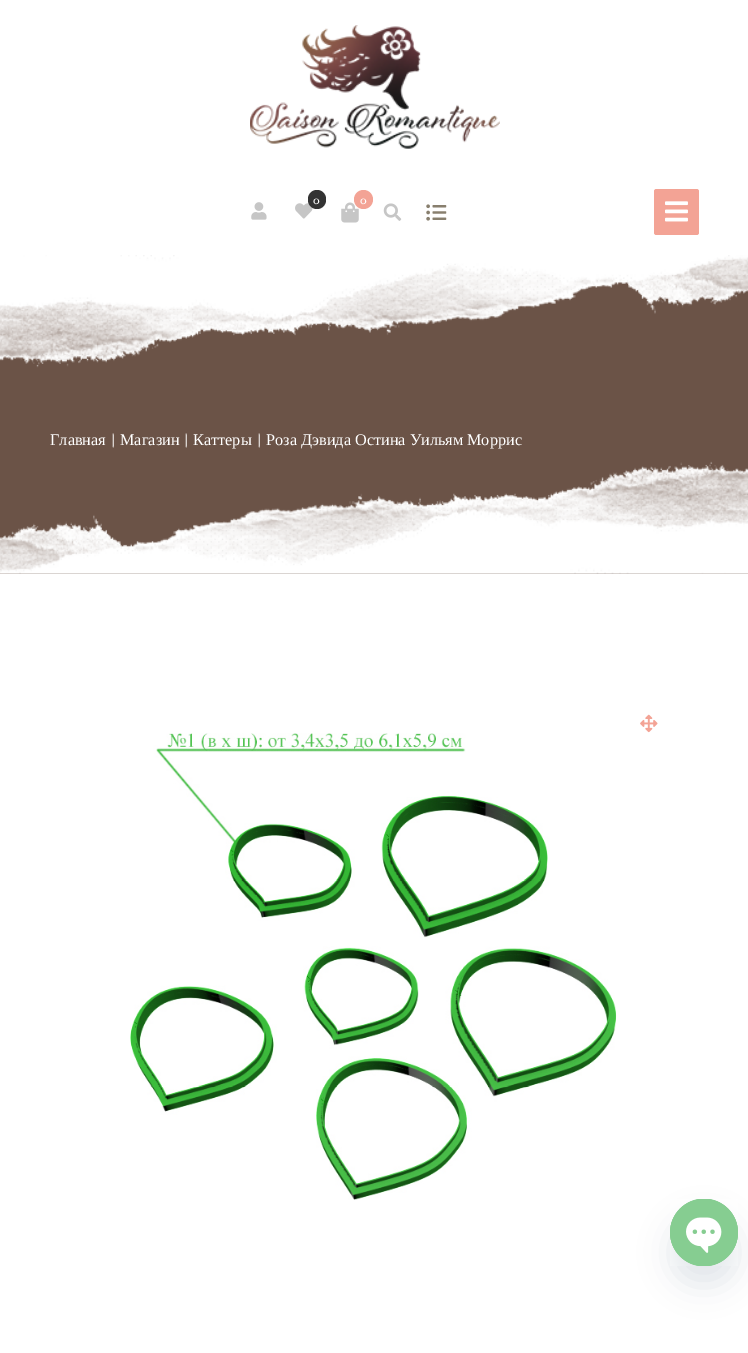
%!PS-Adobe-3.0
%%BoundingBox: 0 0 748 1353
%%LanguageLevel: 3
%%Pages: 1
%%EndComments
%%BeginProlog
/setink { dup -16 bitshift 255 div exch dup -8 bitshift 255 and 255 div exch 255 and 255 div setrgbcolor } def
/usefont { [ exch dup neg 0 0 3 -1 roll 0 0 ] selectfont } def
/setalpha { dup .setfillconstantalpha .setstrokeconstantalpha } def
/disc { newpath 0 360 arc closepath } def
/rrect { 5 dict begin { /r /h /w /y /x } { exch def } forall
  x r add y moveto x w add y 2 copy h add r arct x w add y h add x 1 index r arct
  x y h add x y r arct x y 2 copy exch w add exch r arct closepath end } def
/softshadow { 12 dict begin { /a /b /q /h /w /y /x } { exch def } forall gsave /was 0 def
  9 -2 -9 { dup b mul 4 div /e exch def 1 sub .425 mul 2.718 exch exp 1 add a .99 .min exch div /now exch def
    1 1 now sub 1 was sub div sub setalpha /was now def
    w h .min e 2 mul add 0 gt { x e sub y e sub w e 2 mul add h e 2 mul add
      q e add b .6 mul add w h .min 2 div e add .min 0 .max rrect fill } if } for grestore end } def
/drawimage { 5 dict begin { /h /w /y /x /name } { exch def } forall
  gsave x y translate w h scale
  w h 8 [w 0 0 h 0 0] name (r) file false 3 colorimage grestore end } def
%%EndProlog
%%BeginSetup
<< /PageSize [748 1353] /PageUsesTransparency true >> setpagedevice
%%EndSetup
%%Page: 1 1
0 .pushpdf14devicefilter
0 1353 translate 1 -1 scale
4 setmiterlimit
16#FFFFFF setink
0 0 748 1353 rectfill
(img1.raw) 250 25 250 124 drawimage
(img2.raw) 251 202 16 18 drawimage
(img3.raw) 295 203 18 16 drawimage
16#333333 setink
308 190 18 19 9 rrect fill
/Radley-Regular 12 usefont
16#FFFFFF setink
313 204 moveto (0) show
(img4.raw) 341 202 18 21 drawimage
16#F3A395 setink
363.5 199.5 9.5 disc fill
16#FFFFFF setink
360 204 moveto (0) show
(img5.raw) 383 203 19 18 drawimage
(img6.raw) 426 204 21 17 drawimage
16#F3A395 setink
654 189 45 46 2.5 rrect fill
(img7.raw) 665 201 23 21 drawimage
16#6B5347 setink
0 255 748 319 rectfill
(img8.raw) 0 255 748 113 drawimage
/LiberationSerif-Regular 16.25 usefont
16#FFFFFF setink
50 445 moveto (Главная) show
/Radley-Regular 16.25 usefont
110 445 moveto (|) show
/LiberationSerif-Regular 16.25 usefont
120 445 moveto (Магазин) show
/Radley-Regular 16.25 usefont
183 445 moveto (|) show
/LiberationSerif-Regular 16.25 usefont
193 445 moveto (Каттеры) show
/Radley-Regular 16.25 usefont
256 445 moveto (|) show
/LiberationSerif-Regular 16.25 usefont
266 445 moveto (Роза Дэвида Остина Уильям Моррис) show
(img9.raw) 0 461 748 113 drawimage
(img10.raw) 640 714 18 19 drawimage
(img11.raw) 130 733 487 467 drawimage
16#49687E setink
670 1219 68 67 33.5 15 0.16 softshadow
(img12.raw) 670 1199 68 67 drawimage
.poppdf14devicefilter showpage
%%EOF
